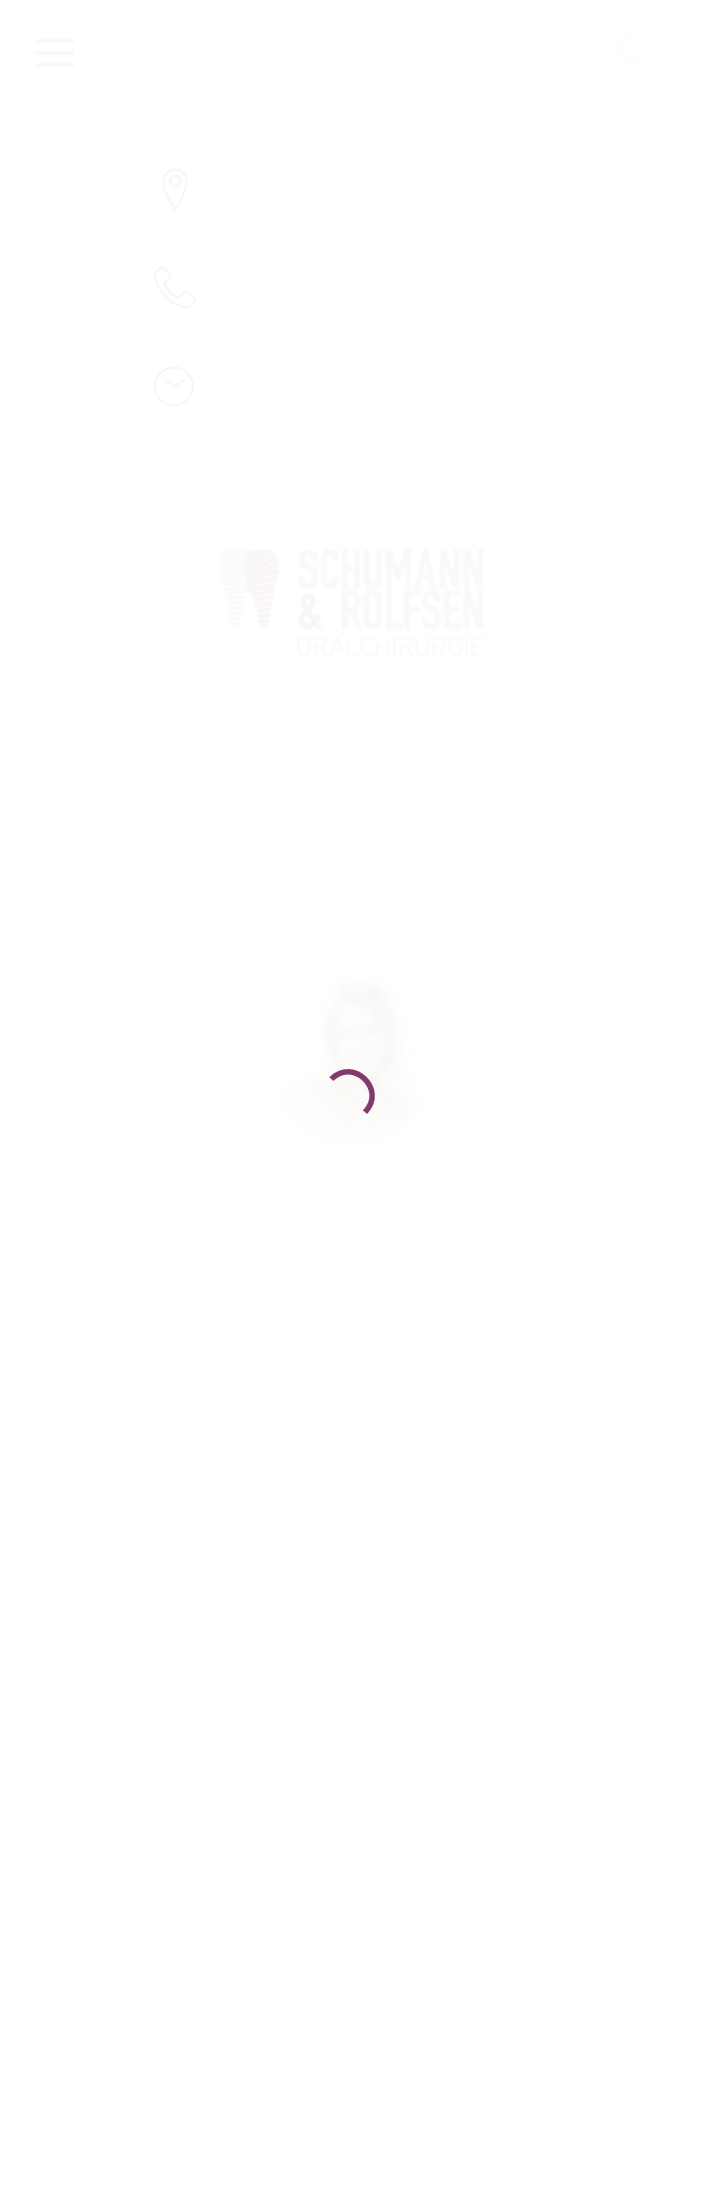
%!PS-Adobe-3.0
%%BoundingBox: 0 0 701 2193
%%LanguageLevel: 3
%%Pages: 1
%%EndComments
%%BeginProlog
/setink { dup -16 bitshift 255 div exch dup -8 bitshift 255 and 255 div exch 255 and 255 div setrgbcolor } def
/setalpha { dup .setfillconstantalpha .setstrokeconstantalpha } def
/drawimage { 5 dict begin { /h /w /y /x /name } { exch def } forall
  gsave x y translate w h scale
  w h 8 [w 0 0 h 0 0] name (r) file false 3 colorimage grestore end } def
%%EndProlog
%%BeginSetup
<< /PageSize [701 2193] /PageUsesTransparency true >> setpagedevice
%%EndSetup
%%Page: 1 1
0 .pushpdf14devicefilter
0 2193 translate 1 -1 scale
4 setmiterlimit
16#FFFFFF setink
0 0 701 2193 rectfill
[
    [35 51 39 4 16#F9F9F9]
    [35 39 39 4 16#F9F9F9]
    [35 63 39 4 16#F9F9F9]
] { aload pop setink rectfill } forall
(img1.raw) 616 35 32 34 drawimage
(img2.raw) 162 168 26 43 drawimage
(img3.raw) 154 266 42 43 drawimage
(img4.raw) 154 366 40 41 drawimage
(img5.raw) 218 547 266 110 drawimage
(img6.raw) 265 971 174 175 drawimage
0.95 setalpha
16#7B3066 setink
5.2 setlinewidth
331.5 1079 moveto 353.5 1057 387 1090 365 1112 curveto stroke
.poppdf14devicefilter showpage
%%EOF
